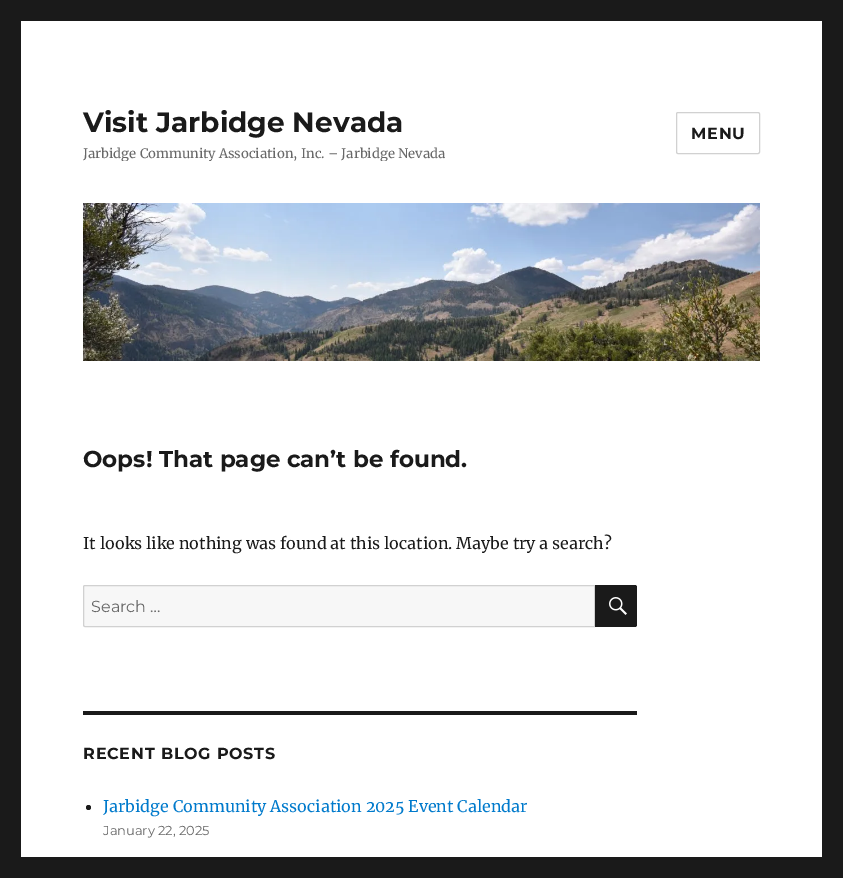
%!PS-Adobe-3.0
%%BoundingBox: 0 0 843 878
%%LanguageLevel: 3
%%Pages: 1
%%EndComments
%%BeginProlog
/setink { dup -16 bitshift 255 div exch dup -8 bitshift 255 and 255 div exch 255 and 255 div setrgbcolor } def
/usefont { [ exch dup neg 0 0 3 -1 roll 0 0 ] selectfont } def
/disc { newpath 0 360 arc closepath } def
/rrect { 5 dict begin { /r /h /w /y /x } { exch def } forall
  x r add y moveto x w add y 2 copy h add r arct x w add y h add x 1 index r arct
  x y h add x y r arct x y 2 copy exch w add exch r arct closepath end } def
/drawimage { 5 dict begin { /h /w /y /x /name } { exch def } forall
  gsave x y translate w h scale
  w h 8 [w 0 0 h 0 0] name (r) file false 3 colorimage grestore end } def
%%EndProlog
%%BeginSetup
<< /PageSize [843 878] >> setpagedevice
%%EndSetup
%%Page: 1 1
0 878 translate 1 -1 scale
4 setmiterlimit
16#1A1A1A setink
0 0 843 878 rectfill
16#FFFFFF setink
21 21 801 836 rectfill
/Montserrat-Thin 28 usefont
16#1A1A1A setink
83 132 moveto (Visit Jarbidge Nevada) show
gsave
83 105 362 56 rectclip
/Merriweather-Regular 13 usefont
16#686868 setink
83 158 moveto (Jarbidge Community Association, Inc. – Jarbidge Nevada) show
grestore
16#D1D1D1 setink
676.5 112.5 83 41 1.5 rrect stroke
/Montserrat-Thin 16 usefont
16#1A1A1A setink
691 139 moveto 0.75 0 (MENU) ashow
(img1.raw) 83 203 677 158 drawimage
/Montserrat-Thin 23 usefont
83 467 moveto (Oops! That page can’t be found.) show
/Merriweather-Regular 16 usefont
83 549 moveto (It looks like nothing was found at this location. Maybe try a search?) show
16#F7F7F7 setink
85 585.5 moveto 594.5 585.5 lineto 594.5 626.5 lineto 85 626.5 lineto 84 626.5 83.5 626 83.5 625 curveto 83.5 587 lineto 83.5 586 84 585.5 85 585.5 curveto closepath gsave fill grestore
16#D1D1D1 setink
stroke
/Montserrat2-Thin 16 usefont
16#686868 setink
91 612 moveto (Search …) show
16#1A1A1A setink
595 585 moveto 635 585 lineto 636 585 637 586 637 587 curveto 637 625 lineto 637 626 636 627 635 627 curveto 595 627 lineto closepath fill
(img2.raw) 609 597 18 18 drawimage
83 711 554 4 rectfill
/Montserrat-Thin 16 usefont
83 759 moveto 0.75 0 (RECENT BLOG POSTS) ashow
88.5 807.5 2.5 disc fill
/Merriweather-Regular 16 usefont
16#007ACC setink
103 812 moveto (Jarbidge Community Association 2025 Event Calendar) show
/Montserrat2-Thin 13 usefont
16#686868 setink
103 835 moveto (January 22, 2025) show
showpage
%%EOF
